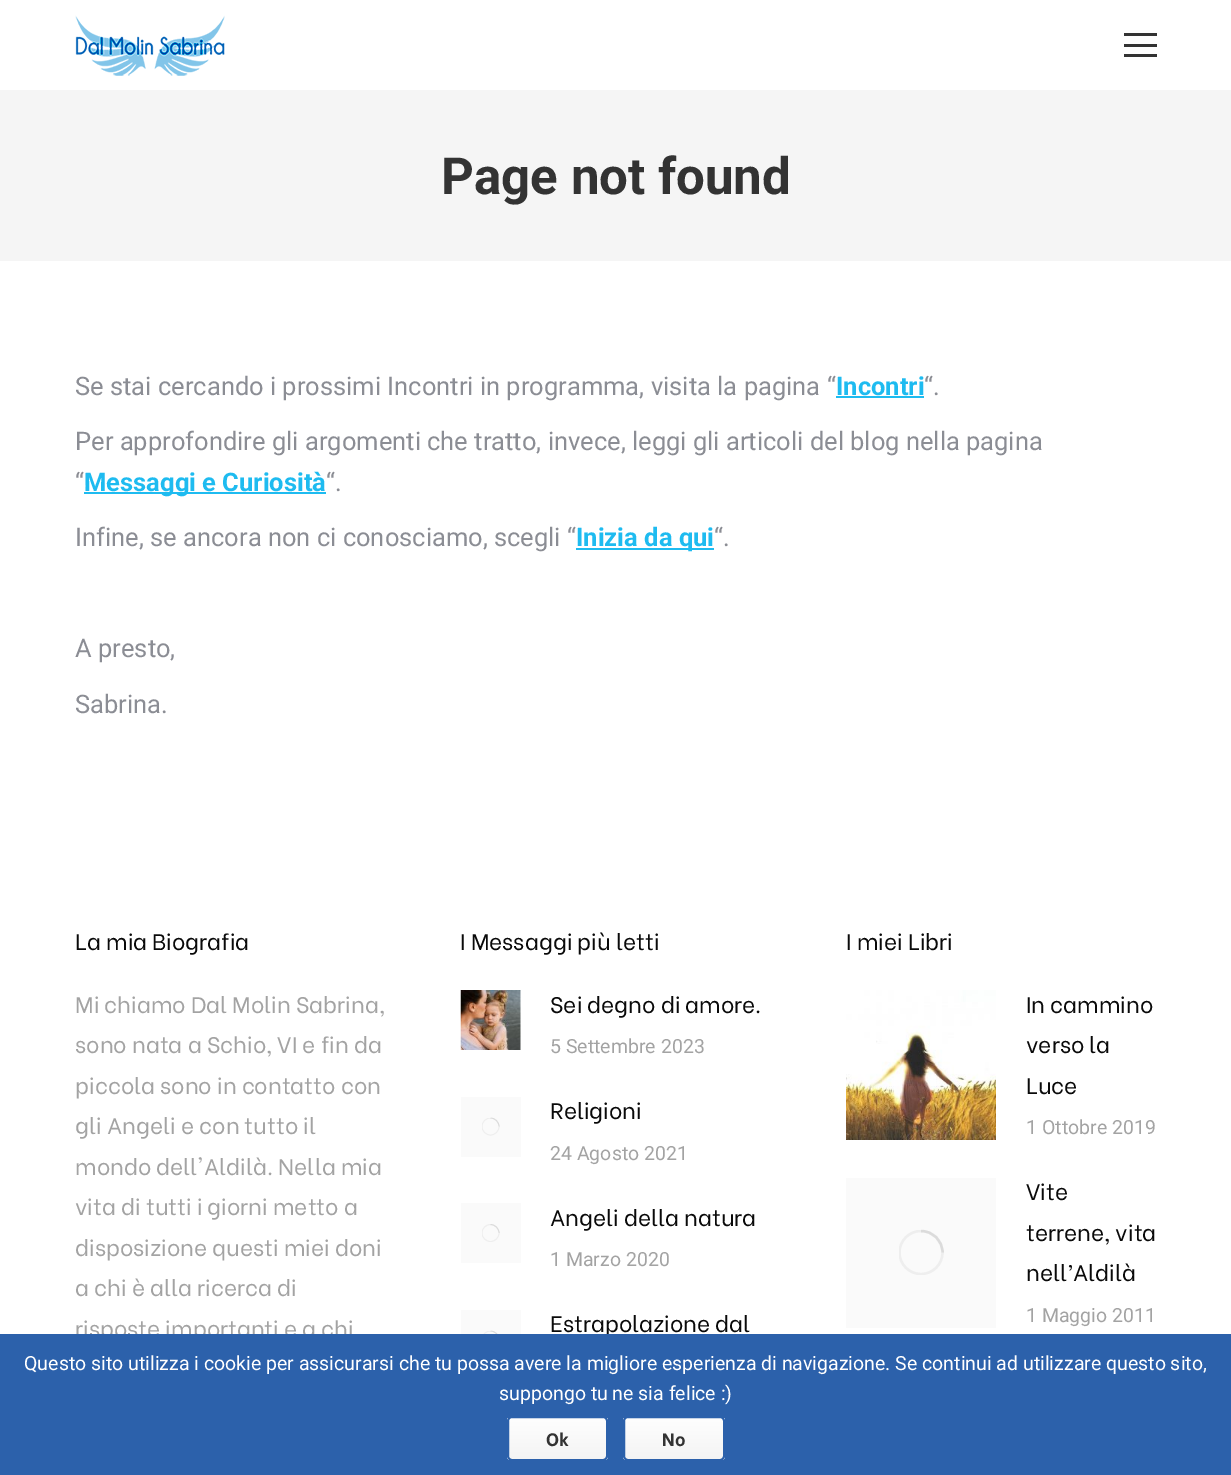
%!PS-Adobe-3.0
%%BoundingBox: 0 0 1231 1475
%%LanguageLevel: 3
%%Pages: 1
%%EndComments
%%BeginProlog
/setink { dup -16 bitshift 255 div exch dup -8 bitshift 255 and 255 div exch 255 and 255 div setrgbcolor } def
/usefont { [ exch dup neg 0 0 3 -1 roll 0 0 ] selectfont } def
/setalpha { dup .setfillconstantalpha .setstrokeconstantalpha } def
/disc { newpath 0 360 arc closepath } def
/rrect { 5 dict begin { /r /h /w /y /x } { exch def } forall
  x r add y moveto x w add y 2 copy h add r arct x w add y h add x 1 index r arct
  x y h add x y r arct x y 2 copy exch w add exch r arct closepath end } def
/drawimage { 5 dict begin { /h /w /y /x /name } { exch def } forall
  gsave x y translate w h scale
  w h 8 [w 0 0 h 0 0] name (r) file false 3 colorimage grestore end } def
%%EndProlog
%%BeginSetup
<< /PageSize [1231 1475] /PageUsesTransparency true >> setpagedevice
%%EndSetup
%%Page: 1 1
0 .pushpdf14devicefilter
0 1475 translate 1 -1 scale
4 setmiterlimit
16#FFFFFF setink
0 0 1231 1475 rectfill
(img1.raw) 75 15 150 61 drawimage
[
    [1124 44 33 3 16#333333]
    [1124 33 33 3 16#333333]
    [1124 54 33 3 16#333333]
    [0 90 1231 171 16#F5F5F5]
] { aload pop setink rectfill } forall
/Roboto-Bold 51 usefont
16#333333 setink
441 194 moveto (Page not found) show
/Roboto-Regular 25.5 usefont
16#8B8D94 setink
75 395 moveto (Se stai cercando i prossimi Incontri in programma, visita la pagina “) show
/Roboto-Bold 25.5 usefont
16#1EBBF0 setink
836 395 moveto (Incontri) show
836 396 88 2 rectfill
/Roboto-Regular 25.5 usefont
16#8B8D94 setink
[
    [(“.) 924 395]
    [(Per approfondire gli argomenti che tratto, invece, leggi gli articoli del blog nella pagina) 75 450]
    [(“) 75 491]
] { aload pop moveto show } forall
16#1EBBF0 setink
84 492 242 2 rectfill
/Roboto-Bold 25.5 usefont
84 491 moveto (Messaggi e Curiosità) show
/Roboto-Regular 25.5 usefont
16#8B8D94 setink
326 491 moveto (“.) show
75 546 moveto (Infine, se ancora non ci conosciamo, scegli “) show
16#1EBBF0 setink
576 548 138 2 rectfill
/Roboto-Bold 25.5 usefont
576 546 moveto (Inizia da qui) show
/Roboto-Regular 25.5 usefont
16#8B8D94 setink
[
    [(“.) 714 546]
    [(A presto,) 75 657]
    [(Sabrina.) 75 713]
] { aload pop moveto show } forall
/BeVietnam-Regular 22.5 usefont
16#0A0A0A setink
75 950 moveto (La mia Biografia) show
16#A3A3A3 setink
[
    [(Mi chiamo Dal Molin Sabrina,) 75 1013]
    [(sono nata a Schio, VI e fin da) 75 1053]
    [(piccola sono in contatto con) 75 1094]
    [(gli Angeli e con tutto il) 75 1134]
    [(mondo dell'Aldilà. Nella mia) 75 1175]
    [(vita di tutti i giorni metto a) 75 1215]
    [(disposizione questi miei doni) 75 1256]
    [(a chi è alla ricerca di) 75 1296]
    [(risposte importanti e a chi) 75 1337]
] { aload pop moveto show } forall
16#0A0A0A setink
460 950 moveto (I Messaggi più letti) show
(img2.raw) 460 990 61 60 drawimage
550 1013 moveto (Sei degno di amore.) show
/Roboto-Regular 19.5 usefont
16#A3A3A3 setink
550 1053 moveto (5 Settembre 2023) show
16#FAFAFA setink
461 1097 60 60 rectfill
gsave
482 1118 18 18 rectclip
16#EEEEEE setink
0.9 setlinewidth
490.5 1126.5 8.5 disc stroke
grestore
0.25 setalpha
16#A3A3A3 setink
0.9 setlinewidth
499 1126.5 moveto 499 1122 495 1118 490.5 1118 curveto stroke
/BeVietnam-Regular 22.5 usefont
1 setalpha
16#0A0A0A setink
550 1119 moveto (Religioni) show
/Roboto-Regular 19.5 usefont
16#A3A3A3 setink
550 1160 moveto (24 Agosto 2021) show
16#FAFAFA setink
461 1203 60 60 rectfill
gsave
482 1224 18 18 rectclip
16#EEEEEE setink
490.5 1233 8.5 disc stroke
grestore
0.25 setalpha
16#A3A3A3 setink
499 1233 moveto 499 1228.5 495 1224.5 490.5 1224.5 curveto stroke
/BeVietnam-Regular 22.5 usefont
1 setalpha
16#0A0A0A setink
550 1226 moveto (Angeli della natura) show
/Roboto-Regular 19.5 usefont
16#A3A3A3 setink
550 1266 moveto (1 Marzo 2020) show
16#FAFAFA setink
461 1310 60 24 rectfill
gsave
482 1331 18 18 rectclip
16#EEEEEE setink
490.5 1339.5 8.5 disc stroke
grestore
0.25 setalpha
16#A3A3A3 setink
499 1339.5 moveto 499 1335 495 1331 490.5 1331 curveto stroke
/BeVietnam-Regular 22.5 usefont
1 setalpha
16#0A0A0A setink
550 1332 moveto (Estrapolazione dal) show
846 950 moveto (I miei Libri) show
(img3.raw) 846 990 150 150 drawimage
[
    [(In cammino) 1026 1013]
    [(verso la) 1026 1053]
    [(Luce) 1026 1094]
] { aload pop moveto show } forall
/Roboto-Regular 19.5 usefont
16#A3A3A3 setink
1026 1134 moveto (1 Ottobre 2019) show
16#FAFAFA setink
846 1178 150 150 rectfill
gsave
899 1230 45 45 rectclip
16#EEEEEE setink
2.4 setlinewidth
921 1252.5 21.5 disc stroke
grestore
0.25 setalpha
16#A3A3A3 setink
2.4 setlinewidth
942.5 1252.5 moveto 942.5 1240.5 933 1231 921 1231 curveto stroke
/BeVietnam-Regular 22.5 usefont
1 setalpha
16#0A0A0A setink
[
    [(Vite) 1026 1200]
    [(terrene, vita) 1026 1241]
    [(nell’Aldilà) 1026 1281]
] { aload pop moveto show } forall
/Roboto-Regular 19.5 usefont
16#A3A3A3 setink
1026 1322 moveto (1 Maggio 2011) show
16#2C61AB setink
0 1334 1231 141 rectfill
16#FFFFFF setink
24 1370 moveto (Questo sito utilizza i cookie per assicurarsi che tu possa avere la migliore esperienza di navigazione. Se continui ad utilizzare questo sito,) show
499 1400 moveto (suppongo tu ne sia felice :\)) show
gsave
507 1416 101 45 5 rrect clip newpath
gsave 507 1418 moveto 608 1418 lineto 608 1460 lineto 507 1460 lineto closepath clip newpath
<< /ShadingType 2 /ColorSpace /DeviceRGB /Coords [557 1418 557 1460] /Extend [true true] /Function << /FunctionType 2 /Domain [0 1] /C0 [0.996 0.996 0.996] /C1 [0.957 0.957 0.957] /N 1 >> >> shfill grestore
grestore
16#2C61AB setink
2 setlinewidth
508 1417 99 43 4 rrect stroke
/BeVietnam-Bold 18 usefont
16#333333 setink
546 1446 moveto (Ok) show
gsave
623 1416 102 45 5 rrect clip newpath
gsave 623 1418 moveto 725 1418 lineto 725 1460 lineto 623 1460 lineto closepath clip newpath
<< /ShadingType 2 /ColorSpace /DeviceRGB /Coords [674 1418 674 1460] /Extend [true true] /Function << /FunctionType 2 /Domain [0 1] /C0 [0.996 0.996 0.996] /C1 [0.957 0.957 0.957] /N 1 >> >> shfill grestore
grestore
16#2C61AB setink
624 1417 100 43 4 rrect stroke
16#333333 setink
662 1446 moveto (No) show
.poppdf14devicefilter showpage
%%EOF
